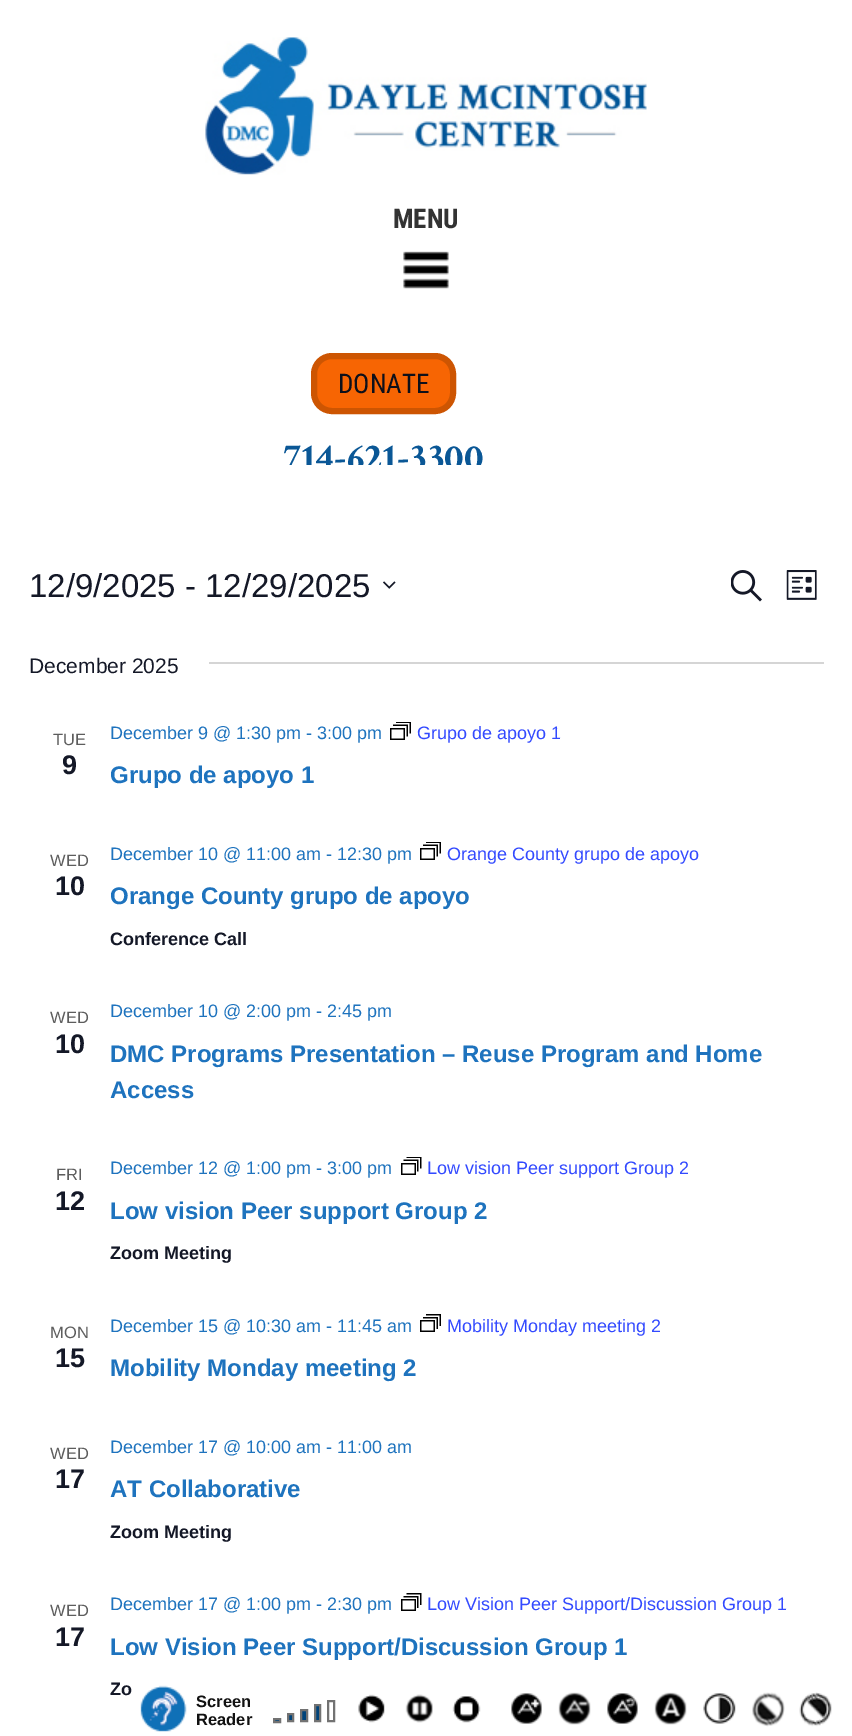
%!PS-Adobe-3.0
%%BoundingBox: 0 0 852 1736
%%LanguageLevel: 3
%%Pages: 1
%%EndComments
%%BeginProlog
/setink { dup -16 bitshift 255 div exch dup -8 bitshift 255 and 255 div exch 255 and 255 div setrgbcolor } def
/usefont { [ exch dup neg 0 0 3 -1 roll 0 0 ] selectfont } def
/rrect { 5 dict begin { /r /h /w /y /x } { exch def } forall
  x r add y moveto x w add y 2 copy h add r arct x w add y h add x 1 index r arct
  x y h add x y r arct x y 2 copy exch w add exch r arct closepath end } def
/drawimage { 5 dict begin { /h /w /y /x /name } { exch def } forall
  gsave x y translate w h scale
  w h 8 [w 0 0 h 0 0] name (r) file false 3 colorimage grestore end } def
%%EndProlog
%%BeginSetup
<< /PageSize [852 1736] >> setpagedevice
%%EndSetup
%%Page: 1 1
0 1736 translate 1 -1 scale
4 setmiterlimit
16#FFFFFF setink
0 0 852 1736 rectfill
(img1.raw) 205 37 442 138 drawimage
/RobotoCondensed-Bold 27 usefont
16#333333 setink
393 228 moveto (MENU) show
(img2.raw) 403 251 46 38 drawimage
16#F76503 setink
314 356 139 55 18 rrect gsave fill grestore
16#CD5502 setink
6 setlinewidth
stroke
/RobotoCondensed-Regular 27 usefont
16#0E101A setink
338 393 moveto (DONATE) show
/CrimsonText-Bold 39 usefont
16#0A5796 setink
283 470 moveto (714-621-3300) show
16#FFFFFF setink
287 465 194 6 rectfill
/LiberationSans-Regular 33 usefont
16#141827 setink
29 597 moveto (12/9/2025 - 12/29/2025) show
(img3.raw) 383 581 13 8 drawimage
(img4.raw) 731 570 31 32 drawimage
(img5.raw) 786 570 31 30 drawimage
/LiberationSans-Regular 21 usefont
29 673 moveto (December 2025) show
16#D5D5D5 setink
209 662 615 2 rectfill
/LiberationSans-Regular 16.5 usefont
16#5D5D5D setink
53 745 moveto (TUE) show
/LiberationSans-Bold 27 usefont
16#141827 setink
62 774 moveto (9) show
/LiberationSans-Regular 18 usefont
16#1E73BE setink
110 739 moveto (December 9 @ 1:30 pm - 3:00 pm) show
(img6.raw) 390 722 21 18 drawimage
16#334AFF setink
417 739 moveto (Grupo de apoyo 1) show
/LiberationSans-Bold 24 usefont
16#1E73BE setink
110 783 moveto (Grupo de apoyo 1) show
/LiberationSans-Regular 16.5 usefont
16#5D5D5D setink
50 866 moveto (WED) show
/LiberationSans-Bold 27 usefont
16#141827 setink
55 895 moveto (10) show
/LiberationSans-Regular 18 usefont
16#1E73BE setink
110 860 moveto (December 10 @ 11:00 am - 12:30 pm) show
(img6.raw) 420 842 21 18 drawimage
16#334AFF setink
447 860 moveto (Orange County grupo de apoyo) show
/LiberationSans-Bold 24 usefont
16#1E73BE setink
110 904 moveto (Orange County grupo de apoyo) show
/LiberationSans-Bold 18 usefont
16#141827 setink
110 945 moveto (Conference Call) show
/LiberationSans-Regular 16.5 usefont
16#5D5D5D setink
50 1023 moveto (WED) show
/LiberationSans-Bold 27 usefont
16#141827 setink
55 1053 moveto (10) show
/LiberationSans-Regular 18 usefont
16#1E73BE setink
110 1017 moveto (December 10 @ 2:00 pm - 2:45 pm) show
/LiberationSans-Bold 24 usefont
110 1062 moveto (DMC Programs Presentation – Reuse Program and Home) show
110 1098 moveto (Access) show
/LiberationSans-Regular 16.5 usefont
16#5D5D5D setink
56 1180 moveto (FRI) show
/LiberationSans-Bold 27 usefont
16#141827 setink
55 1210 moveto (12) show
/LiberationSans-Regular 18 usefont
16#1E73BE setink
110 1174 moveto (December 12 @ 1:00 pm - 3:00 pm) show
(img7.raw) 401 1157 21 18 drawimage
16#334AFF setink
427 1174 moveto (Low vision Peer support Group 2) show
/LiberationSans-Bold 24 usefont
16#1E73BE setink
110 1219 moveto (Low vision Peer support Group 2) show
/LiberationSans-Bold 18 usefont
16#141827 setink
110 1259 moveto (Zoom Meeting) show
/LiberationSans-Regular 16.5 usefont
16#5D5D5D setink
50 1338 moveto (MON) show
/LiberationSans-Bold 27 usefont
16#141827 setink
55 1367 moveto (15) show
/LiberationSans-Regular 18 usefont
16#1E73BE setink
110 1332 moveto (December 15 @ 10:30 am - 11:45 am) show
(img8.raw) 420 1314 21 18 drawimage
16#334AFF setink
447 1332 moveto (Mobility Monday meeting 2) show
/LiberationSans-Bold 24 usefont
16#1E73BE setink
110 1376 moveto (Mobility Monday meeting 2) show
/LiberationSans-Regular 16.5 usefont
16#5D5D5D setink
50 1459 moveto (WED) show
/LiberationSans-Bold 27 usefont
16#141827 setink
55 1488 moveto (17) show
/LiberationSans-Regular 18 usefont
16#1E73BE setink
110 1453 moveto (December 17 @ 10:00 am - 11:00 am) show
/LiberationSans-Bold 24 usefont
110 1497 moveto (AT Collaborative) show
/LiberationSans-Bold 18 usefont
16#141827 setink
110 1538 moveto (Zoom Meeting) show
/LiberationSans-Regular 16.5 usefont
16#5D5D5D setink
50 1616 moveto (WED) show
/LiberationSans-Bold 27 usefont
16#141827 setink
55 1646 moveto (17) show
/LiberationSans-Regular 18 usefont
16#1E73BE setink
110 1610 moveto (December 17 @ 1:00 pm - 2:30 pm) show
(img9.raw) 401 1593 21 18 drawimage
16#334AFF setink
427 1610 moveto (Low Vision Peer Support/Discussion Group 1) show
/LiberationSans-Bold 24 usefont
16#1E73BE setink
110 1655 moveto (Low Vision Peer Support/Discussion Group 1) show
/LiberationSans-Bold 18 usefont
16#141827 setink
110 1695 moveto (Zo) show
(img10.raw) 140 1685 47 47 drawimage
/LiberationSans-Bold 16.5 usefont
16#111111 setink
196 1707 moveto (Screen) show
196 1725 moveto (Reader) show
16#00437A setink
274 1719 moveto 280 1719 lineto 280 1722 lineto 274 1722 lineto closepath gsave fill grestore
16#727272 setink
2 setlinewidth
stroke
16#00437A setink
288 1714 moveto 293 1714 lineto 293 1721 lineto 288 1721 lineto closepath gsave fill grestore
16#727272 setink
stroke
16#00437A setink
301 1710 moveto 307 1710 lineto 307 1721 lineto 301 1721 lineto closepath gsave fill grestore
16#727272 setink
stroke
16#00437A setink
315 1705 moveto 320 1705 lineto 320 1721 lineto 315 1721 lineto closepath gsave fill grestore
16#727272 setink
stroke
328 1701 6 20 rectstroke
(img11.raw) 358 1694 27 29 drawimage
(img12.raw) 405 1694 28 29 drawimage
(img13.raw) 452 1696 29 27 drawimage
(img14.raw) 511 1693 31 31 drawimage
(img15.raw) 558 1692 33 33 drawimage
(img16.raw) 607 1693 31 31 drawimage
(img17.raw) 654 1692 33 33 drawimage
(img18.raw) 703 1693 33 31 drawimage
(img19.raw) 752 1692 33 35 drawimage
(img20.raw) 799 1692 33 35 drawimage
showpage
%%EOF
